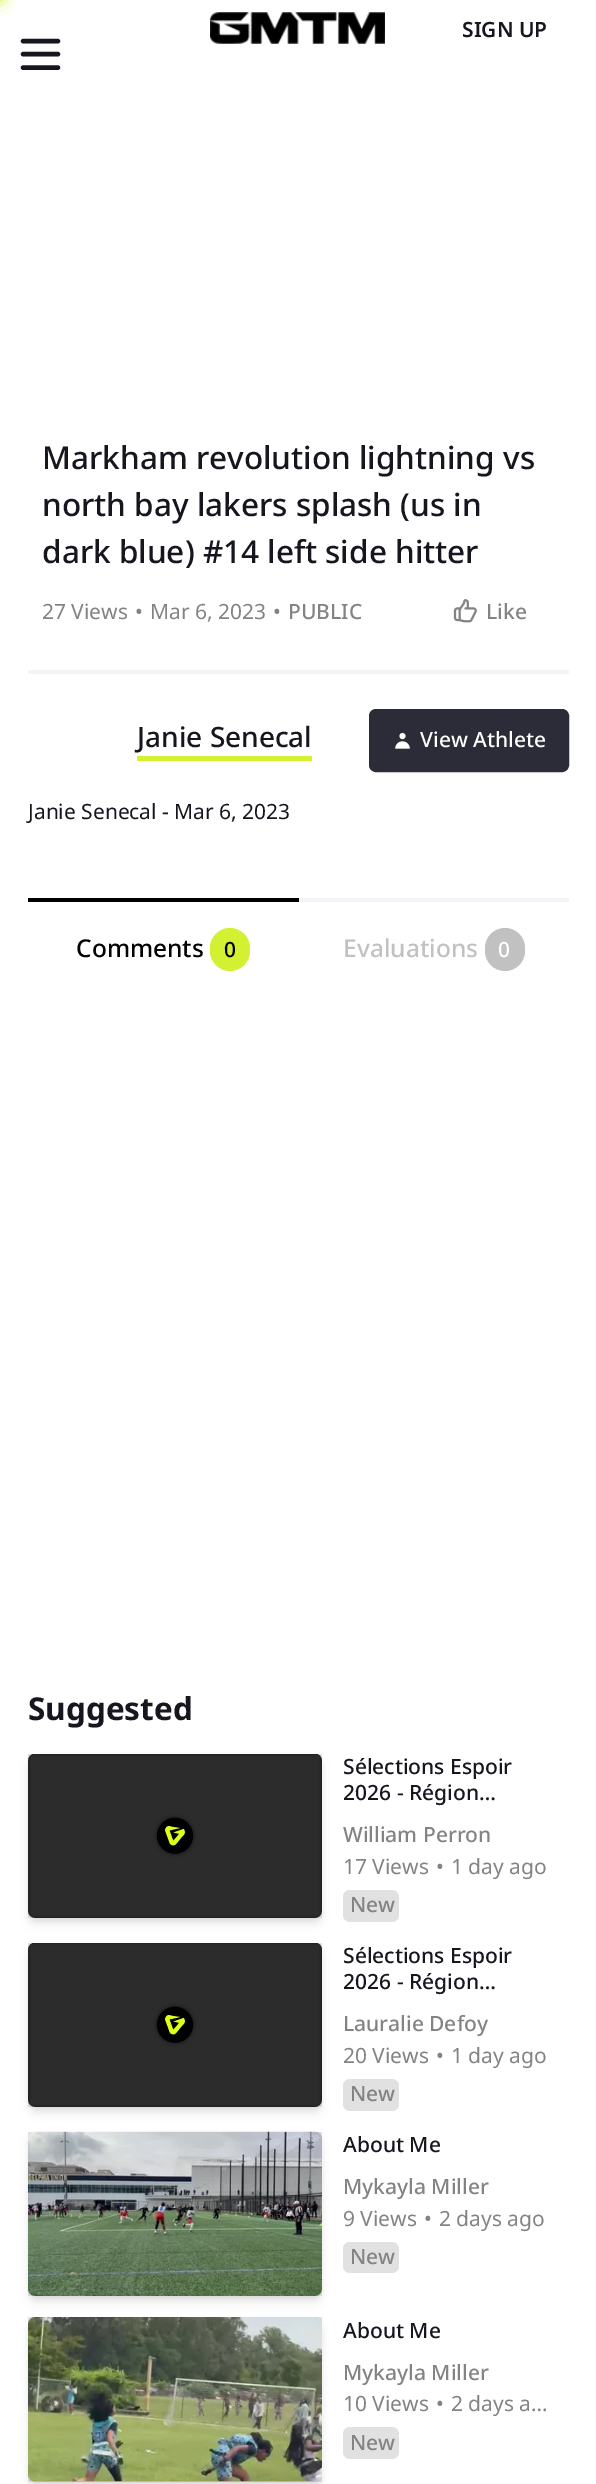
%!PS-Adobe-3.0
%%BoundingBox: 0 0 596 2484
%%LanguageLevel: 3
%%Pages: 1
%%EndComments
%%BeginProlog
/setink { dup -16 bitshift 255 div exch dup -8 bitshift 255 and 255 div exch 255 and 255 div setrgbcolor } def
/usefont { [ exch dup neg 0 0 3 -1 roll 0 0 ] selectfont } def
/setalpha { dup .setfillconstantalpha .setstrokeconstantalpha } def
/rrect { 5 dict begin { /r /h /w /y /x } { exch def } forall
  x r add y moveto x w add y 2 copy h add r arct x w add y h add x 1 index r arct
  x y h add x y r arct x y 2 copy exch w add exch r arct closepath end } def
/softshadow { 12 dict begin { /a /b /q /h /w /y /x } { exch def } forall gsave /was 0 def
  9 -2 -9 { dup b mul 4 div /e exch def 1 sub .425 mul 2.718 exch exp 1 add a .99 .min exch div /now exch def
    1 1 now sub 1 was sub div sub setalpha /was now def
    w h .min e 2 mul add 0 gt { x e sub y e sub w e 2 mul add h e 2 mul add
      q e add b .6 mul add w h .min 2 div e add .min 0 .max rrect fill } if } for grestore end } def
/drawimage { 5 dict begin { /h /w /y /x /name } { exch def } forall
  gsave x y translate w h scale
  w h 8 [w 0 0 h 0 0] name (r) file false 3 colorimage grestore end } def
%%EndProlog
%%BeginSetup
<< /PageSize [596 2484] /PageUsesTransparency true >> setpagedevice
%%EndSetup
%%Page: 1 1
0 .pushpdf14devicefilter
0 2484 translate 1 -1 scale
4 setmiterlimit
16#FFFFFF setink
0 0 596 2484 rectfill
16#D3F132 setink
-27 -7 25 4 0 9 1 softshadow
-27 -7 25 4 0 9 1 softshadow
(img1.raw) 210 12 175 32 drawimage
/NotoSans-SemiBold 21 usefont
16#16161F setink
462 37 moveto (SIGN UP) show
4.4 setlinewidth
1 setlinecap
1 setlinejoin
23 41 moveto 58 41 lineto 23 54 moveto 58 54 lineto 23 67.5 moveto 58 67.5 lineto stroke
16#F4F4F8 setink
28 670 541 4 rectfill
/NotoSans-Medium 31.5 usefont
16#16161F setink
[
    [(Markham revolution lightning vs) 42 469]
    [(north bay lakers splash \(us in) 42 516]
    [(dark blue\) #14 left side hitter) 42 563]
] { aload pop moveto show } forall
/NotoSans-Regular 21 usefont
16#838383 setink
[
    [(27 Views) 42 619]
    [(•) 135 619]
    [(Mar 6, 2023) 150 619]
    [(•) 273 619]
] { aload pop moveto show } forall
/NotoSans-Medium 21 usefont
288 619 moveto (PUBLIC) show
(img2.raw) 453 599 24 24 drawimage
486 619 moveto (Like) show
/NotoSans-Medium 28 usefont
16#16161F setink
137 747 moveto (Janie Senecal) show
16#D3F132 setink
137 756 175 5 rectfill
16#2C2C38 setink
370 710 198 61 6 rrect gsave fill grestore
2 setlinewidth
0 setlinecap
0 setlinejoin
stroke
(img3.raw) 395 732 15 17 drawimage
/NotoSans-Medium 21 usefont
16#FFFFFF setink
420 747 moveto (View Athlete) show
/NotoSans-Regular 21 usefont
16#16161F setink
28 819 moveto (Janie Senecal - Mar 6, 2023) show
16#000000 setink
28 898 271 4 rectfill
/NotoSans-Medium 24.5 usefont
76 957 moveto (Comments) show
16#D3F132 setink
210 928 40 43 20 rrect fill
/NotoSans-Medium 21 usefont
16#000000 setink
224 957 moveto (0) show
16#F4F4F8 setink
299 898 270 4 rectfill
/NotoSans-Medium 24.5 usefont
16#C1C1C1 setink
343 957 moveto (Evaluations) show
485 928 40 43 20 rrect fill
/NotoSans-Medium 21 usefont
16#FFFFFF setink
498 957 moveto (0) show
/NotoSans-Bold 31.5 usefont
16#16161F setink
28 1720 moveto (Suggested) show
16#E1E1E1 setink
28 1754 294 164 rectfill
16#000000 setink
32 1761 287 157 4 3.5 0.1 softshadow
30 1762 290 161 5 5 0.1 softshadow
(img4.raw) 28 1754 294 164 drawimage
/NotoSans-Medium 21 usefont
16#16161F setink
343 1774 moveto (Sélections Espoir) show
343 1800 moveto (2026 - Région…) show
16#838383 setink
343 1842 moveto (William Perron) show
/NotoSans-Regular 21 usefont
[
    [(17 Views) 343 1874]
    [(•) 436 1874]
    [(1 day ago) 451 1874]
] { aload pop moveto show } forall
16#E1E1E1 setink
343 1890 56 32 7 rrect fill
/NotoSans-Medium 21 usefont
16#838383 setink
350 1912 moveto (New) show
16#E1E1E1 setink
28 1943 294 164 rectfill
16#000000 setink
32 1950 287 157 4 3.5 0.1 softshadow
30 1951 290 161 5 5 0.1 softshadow
(img5.raw) 28 1943 294 164 drawimage
16#16161F setink
343 1963 moveto (Sélections Espoir) show
343 1989 moveto (2026 - Région…) show
16#838383 setink
343 2031 moveto (Lauralie Defoy) show
/NotoSans-Regular 21 usefont
[
    [(20 Views) 343 2063]
    [(•) 436 2063]
    [(1 day ago) 451 2063]
] { aload pop moveto show } forall
16#E1E1E1 setink
343 2079 56 32 7 rrect fill
/NotoSans-Medium 21 usefont
16#838383 setink
350 2101 moveto (New) show
16#E1E1E1 setink
28 2132 294 164 rectfill
16#000000 setink
32 2139 287 157 4 3.5 0.1 softshadow
30 2140 290 161 5 5 0.1 softshadow
(img6.raw) 28 2131 294 165 drawimage
16#16161F setink
343 2152 moveto (About Me) show
16#838383 setink
343 2194 moveto (Mykayla Miller) show
/NotoSans-Regular 21 usefont
[
    [(9 Views) 343 2226]
    [(•) 424 2226]
    [(2 days ago) 439 2226]
] { aload pop moveto show } forall
16#E1E1E1 setink
343 2242 56 31 7 rrect fill
/NotoSans-Medium 21 usefont
16#838383 setink
350 2264 moveto (New) show
16#E1E1E1 setink
28 2317 294 165 rectfill
16#000000 setink
32 2324 287 158 4 3.5 0.1 softshadow
30 2326 290 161 5 5 0.1 softshadow
16#C1C1C1 setink
28 2317 294 165 7 rrect fill
(img7.raw) 28 2317 294 165 drawimage
16#16161F setink
343 2338 moveto (About Me) show
16#838383 setink
343 2380 moveto (Mykayla Miller) show
/NotoSans-Regular 21 usefont
[
    [(10 Views) 343 2411]
    [(•) 436 2411]
    [(2 days a…) 451 2411]
] { aload pop moveto show } forall
16#E1E1E1 setink
343 2427 56 32 7 rrect fill
/NotoSans-Medium 21 usefont
16#838383 setink
350 2450 moveto (New) show
.poppdf14devicefilter showpage
%%EOF
